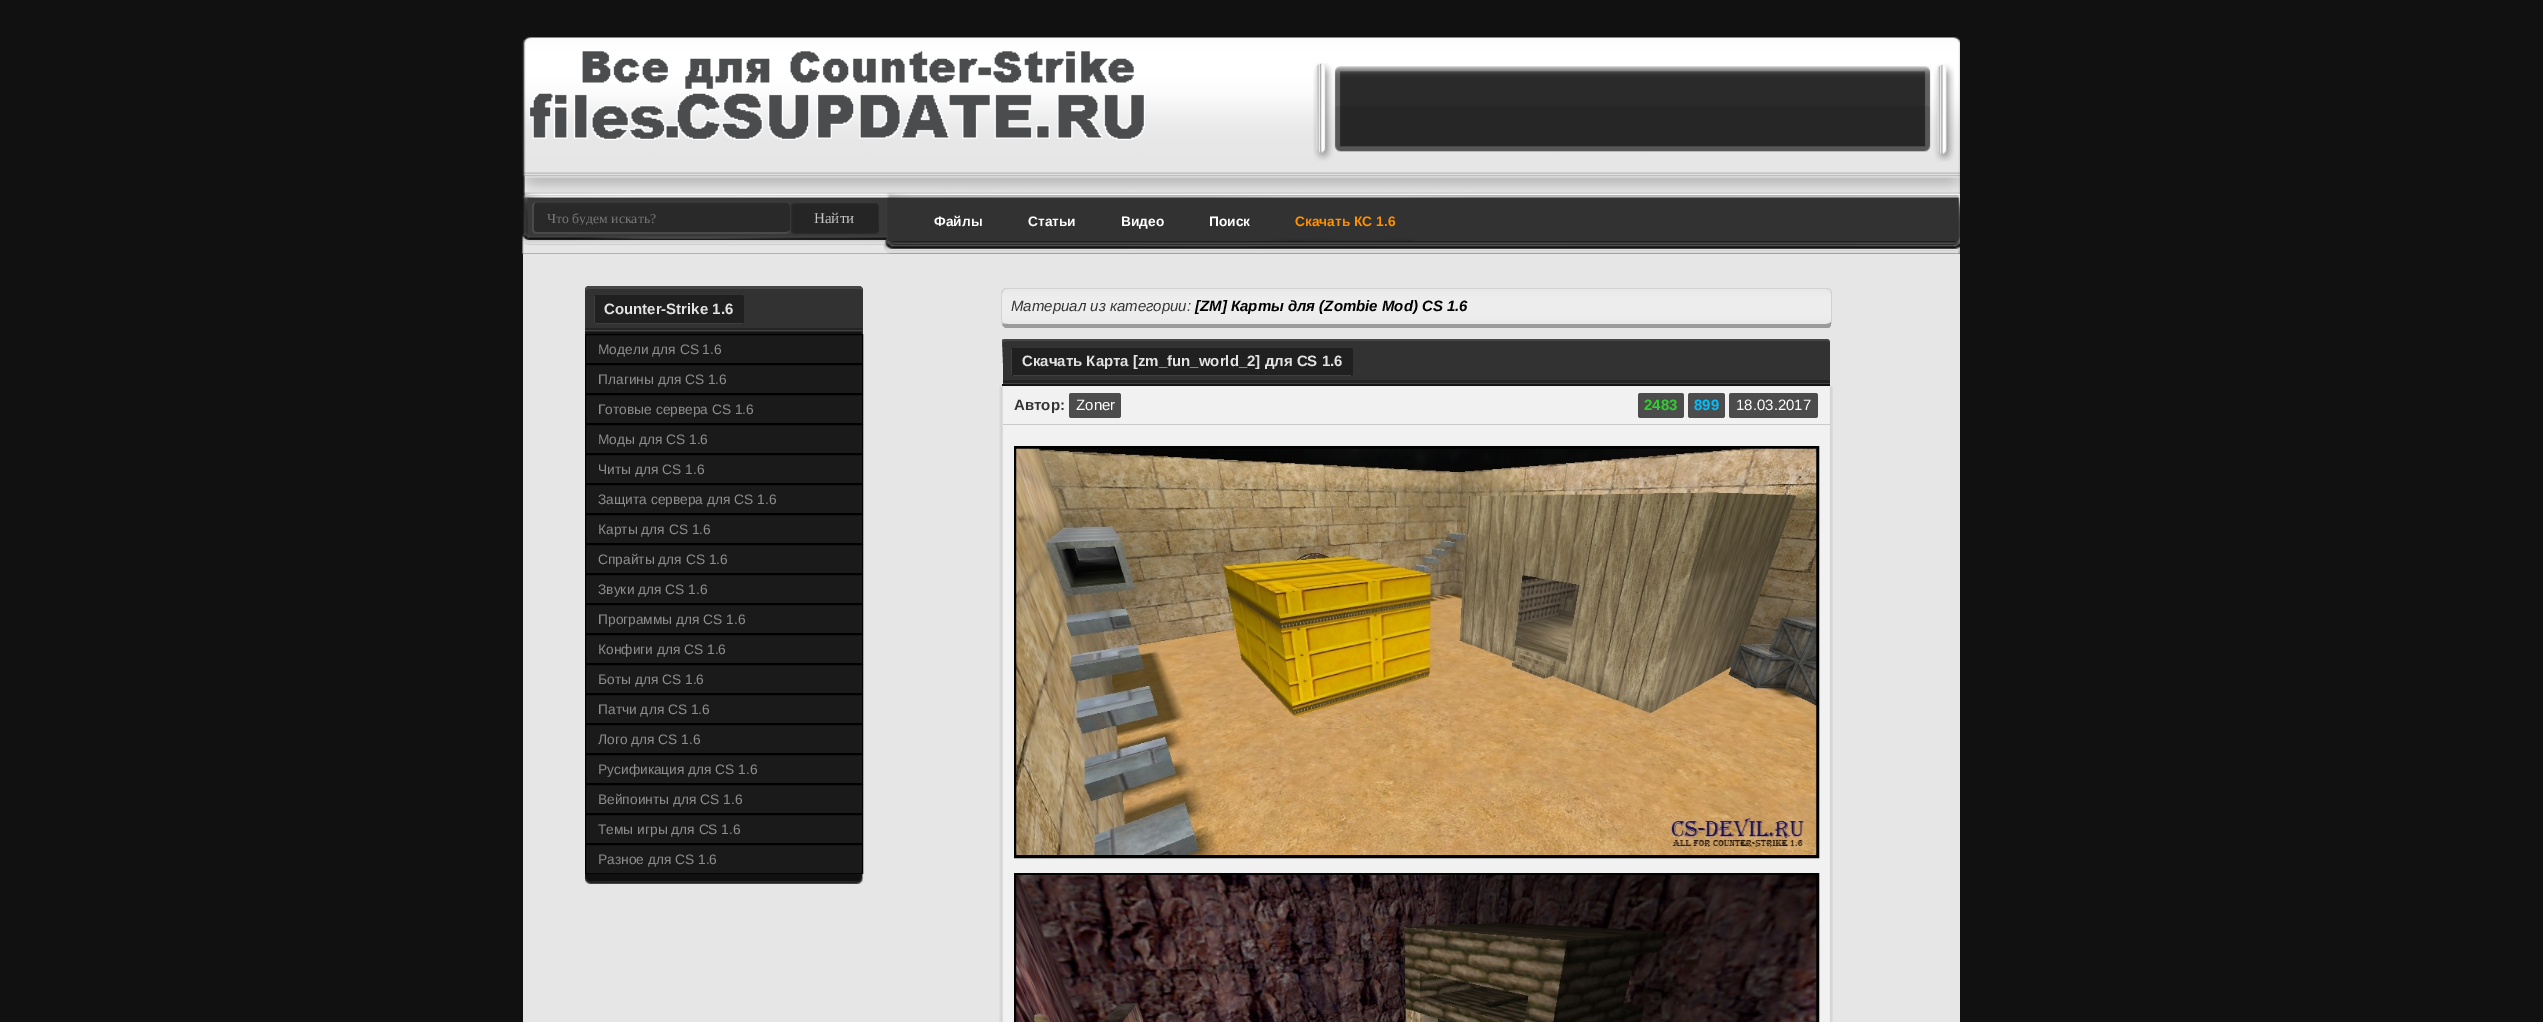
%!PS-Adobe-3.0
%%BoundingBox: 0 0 2543 1022
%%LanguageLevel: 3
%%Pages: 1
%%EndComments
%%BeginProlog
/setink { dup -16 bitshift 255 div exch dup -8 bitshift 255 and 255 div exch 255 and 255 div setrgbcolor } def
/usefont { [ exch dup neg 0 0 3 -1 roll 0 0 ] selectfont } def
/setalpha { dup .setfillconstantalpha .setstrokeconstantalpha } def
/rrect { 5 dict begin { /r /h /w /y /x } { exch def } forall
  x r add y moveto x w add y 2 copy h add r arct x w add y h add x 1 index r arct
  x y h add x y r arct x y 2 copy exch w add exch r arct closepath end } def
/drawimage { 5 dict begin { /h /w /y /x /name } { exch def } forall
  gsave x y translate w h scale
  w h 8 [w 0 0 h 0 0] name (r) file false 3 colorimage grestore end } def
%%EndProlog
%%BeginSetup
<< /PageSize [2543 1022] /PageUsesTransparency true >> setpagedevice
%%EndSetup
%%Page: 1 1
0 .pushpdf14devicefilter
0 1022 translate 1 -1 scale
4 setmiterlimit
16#111111 setink
0 0 2543 1022 rectfill
(img1.raw) 522 37 1438 217 drawimage
(img2.raw) 529 51 616 89 drawimage
(img3.raw) 1313 63 642 99 drawimage
16#292929 setink
533 203 257 31 4 rrect fill
16#4A4A4A setink
536 202 moveto 786 202 lineto 788 202 790 204 790 206 curveto 790 230 lineto 790 232 788 234 786 234 curveto 536 234 lineto 534 234 532 232 532 230 curveto 532 206 lineto 532 204 534 202 536 202 curveto closepath 536 202 moveto 786 202 lineto 788 202 790 204 790 206 curveto 790 230 lineto 790 231 788 232 786 232 curveto 536 232 lineto 535 232 534 231 534 230 curveto 534 206 lineto 534 204 535 202 536 202 curveto closepath eofill
gsave
534 210 241 15 rectclip
/LiberationSerif-Regular 13.75 usefont
16#757575 setink
547 223 moveto (Что будем искать?) show
grestore
16#252525 setink
791 203 88 31 4 rrect fill
0.7 setalpha
16#2D2D2D setink
791.5 203.5 87 30 3.5 rrect stroke
/LiberationSerif-Regular 15 usefont
1 setalpha
16#C5C5C5 setink
814 223 moveto (Найти) show
/LiberationSans-Bold 13.75 usefont
16#FFFFFF setink
[
    [(Файлы) 934 226]
    [(Статьи) 1028 226]
    [(Видео) 1121 226]
    [(Поиск) 1209 226]
] { aload pop moveto show } forall
16#FF9000 setink
1295 226 moveto (Скачать КС 1.6) show
16#E6E6E6 setink
523 254 1437 768 rectfill
16#323232 setink
589 286 moveto 859 286 lineto 861 286 863 288 863 290 curveto 863 334 lineto 585 334 lineto 585 290 lineto 585 288 587 286 589 286 curveto closepath fill
16#464646 setink
589 289 moveto 859 289 lineto 861 289 862 289 862 290 curveto 862 288 861 287 860 286 curveto 588 286 lineto 586 287 585 288 585 290 curveto closepath fill
16#141414 setink
585 332 277 2 rectfill
16#202020 setink
594 295 150 29 2.5 rrect fill
16#3F3F3F setink
595 323 148 1 rectfill
594 296 1 27 rectfill
/LiberationSans-Bold 15 usefont
16#E3E3E3 setink
604 314 moveto (Counter-Strike 1.6) show
16#242424 setink
585 328 278 4 rectfill
16#434343 setink
585 330 278 1 rectfill
16#1A1A1A setink
585.5 334.5 moveto 862.5 334.5 lineto 862.5 363.5 lineto 585.5 363.5 lineto closepath gsave fill grestore
16#000000 setink
stroke
/LiberationSans-Regular 13.75 usefont
16#8D8D8D setink
598 354 moveto (Модели для CS 1.6) show
16#1A1A1A setink
585.5 364.5 moveto 862.5 364.5 lineto 862.5 393.5 lineto 585.5 393.5 lineto closepath gsave fill grestore
16#000000 setink
stroke
16#8D8D8D setink
598 384 moveto (Плагины для CS 1.6) show
16#1A1A1A setink
585.5 394.5 moveto 862.5 394.5 lineto 862.5 423.5 lineto 585.5 423.5 lineto closepath gsave fill grestore
16#000000 setink
stroke
16#8D8D8D setink
598 414 moveto (Готовые сервера CS 1.6) show
16#1A1A1A setink
585.5 424.5 moveto 862.5 424.5 lineto 862.5 453.5 lineto 585.5 453.5 lineto closepath gsave fill grestore
16#000000 setink
stroke
16#8D8D8D setink
598 444 moveto (Моды для CS 1.6) show
16#1A1A1A setink
585.5 454.5 moveto 862.5 454.5 lineto 862.5 483.5 lineto 585.5 483.5 lineto closepath gsave fill grestore
16#000000 setink
stroke
16#8D8D8D setink
598 474 moveto (Читы для CS 1.6) show
16#1A1A1A setink
585.5 484.5 moveto 862.5 484.5 lineto 862.5 513.5 lineto 585.5 513.5 lineto closepath gsave fill grestore
16#000000 setink
stroke
16#8D8D8D setink
598 504 moveto (Защита сервера для CS 1.6) show
16#1A1A1A setink
585.5 514.5 moveto 862.5 514.5 lineto 862.5 543.5 lineto 585.5 543.5 lineto closepath gsave fill grestore
16#000000 setink
stroke
16#8D8D8D setink
598 534 moveto (Карты для CS 1.6) show
16#1A1A1A setink
585.5 544.5 moveto 862.5 544.5 lineto 862.5 573.5 lineto 585.5 573.5 lineto closepath gsave fill grestore
16#000000 setink
stroke
16#8D8D8D setink
598 564 moveto (Спрайты для CS 1.6) show
16#1A1A1A setink
585.5 574.5 moveto 862.5 574.5 lineto 862.5 603.5 lineto 585.5 603.5 lineto closepath gsave fill grestore
16#000000 setink
stroke
16#8D8D8D setink
598 594 moveto (Звуки для CS 1.6) show
16#1A1A1A setink
585.5 604.5 moveto 862.5 604.5 lineto 862.5 633.5 lineto 585.5 633.5 lineto closepath gsave fill grestore
16#000000 setink
stroke
16#8D8D8D setink
598 624 moveto (Программы для CS 1.6) show
16#1A1A1A setink
585.5 634.5 moveto 862.5 634.5 lineto 862.5 663.5 lineto 585.5 663.5 lineto closepath gsave fill grestore
16#000000 setink
stroke
16#8D8D8D setink
598 654 moveto (Конфиги для CS 1.6) show
16#1A1A1A setink
585.5 664.5 moveto 862.5 664.5 lineto 862.5 693.5 lineto 585.5 693.5 lineto closepath gsave fill grestore
16#000000 setink
stroke
16#8D8D8D setink
598 684 moveto (Боты для CS 1.6) show
16#1A1A1A setink
585.5 694.5 moveto 862.5 694.5 lineto 862.5 723.5 lineto 585.5 723.5 lineto closepath gsave fill grestore
16#000000 setink
stroke
16#8D8D8D setink
598 714 moveto (Патчи для CS 1.6) show
16#1A1A1A setink
585.5 724.5 moveto 862.5 724.5 lineto 862.5 753.5 lineto 585.5 753.5 lineto closepath gsave fill grestore
16#000000 setink
stroke
16#8D8D8D setink
598 744 moveto (Лого для CS 1.6) show
16#1A1A1A setink
585.5 754.5 moveto 862.5 754.5 lineto 862.5 783.5 lineto 585.5 783.5 lineto closepath gsave fill grestore
16#000000 setink
stroke
16#8D8D8D setink
598 774 moveto (Русификация для CS 1.6) show
16#1A1A1A setink
585.5 784.5 moveto 862.5 784.5 lineto 862.5 813.5 lineto 585.5 813.5 lineto closepath gsave fill grestore
16#000000 setink
stroke
16#8D8D8D setink
598 804 moveto (Вейпоинты для CS 1.6) show
16#1A1A1A setink
585.5 814.5 moveto 862.5 814.5 lineto 862.5 843.5 lineto 585.5 843.5 lineto closepath gsave fill grestore
16#000000 setink
stroke
16#8D8D8D setink
598 834 moveto (Темы игры для CS 1.6) show
16#1A1A1A setink
585.5 844.5 moveto 862.5 844.5 lineto 862.5 873.5 lineto 585.5 873.5 lineto closepath gsave fill grestore
16#000000 setink
stroke
16#8D8D8D setink
598 864 moveto (Разное для CS 1.6) show
(img4.raw) 585 873 278 11 drawimage
gsave 1008 289 moveto 1826 289 lineto 1829 289 1831 291 1831 294 curveto 1831 321 lineto 1831 323 1829 324 1826 324 curveto 1008 324 lineto 1005 324 1002 323 1002 321 curveto 1002 294 lineto 1002 291 1005 289 1008 289 curveto closepath clip newpath
<< /ShadingType 2 /ColorSpace /DeviceRGB /Coords [1417 289 1417 324] /Extend [true true] /Function << /FunctionType 3 /Domain [0 1] /Functions [<< /FunctionType 2 /Domain [0 1] /C0 [0.914 0.914 0.914] /C1 [0.929 0.929 0.929] /N 1 >> << /FunctionType 2 /Domain [0 1] /C0 [0.929 0.929 0.929] /C1 [0.929 0.929 0.929] /N 1 >> << /FunctionType 2 /Domain [0 1] /C0 [0.929 0.929 0.929] /C1 [0.914 0.914 0.914] /N 1 >>] /Bounds [0.2 0.8] /Encode [0 1 0 1 0 1] >> >> shfill grestore
16#D2D2D2 setink
1008 288 moveto 1006 288 1004 288 1003 289 curveto 1004 290 lineto 1005 289 1007 289 1008 289 curveto 1826 289 lineto 1828 289 1829 290 1830 290 curveto 1830 288 1828 288 1826 288 curveto closepath fill
1831.5 324.5 moveto 1832 323.5 1832 322 1832 321 curveto 1832 294 lineto 1832 292 1831.5 290.5 1830.5 289.5 curveto 1829.5 290.5 lineto 1830.5 291 1831 292.5 1831 294 curveto 1831 321 lineto 1830.5 322 lineto closepath fill
16#9B9B9B setink
1005 328 moveto 1002 325 lineto 1003 323 lineto 1004 324 1006 324 1008 324 curveto 1826 324 lineto 1828 324 1830 323 1831 322 curveto 1831 324 lineto 1831 326 1830 327 1829 328 curveto closepath fill
16#D2D2D2 setink
1001 292 moveto 1001.5 291 1002 290 1003 289.5 curveto 1004 290.5 lineto 1003 291 1002 292.5 1002 294 curveto 1002 321 lineto 1002 321.5 1002.5 322 1003 322.5 curveto 1002 325 lineto 1001 323 lineto closepath fill
/LiberationSans-Italic 15 usefont
16#343434 setink
1011 311 moveto (Материал из категории:) show
/LiberationSans-BoldItalic 15 usefont
16#000000 setink
1195 311 moveto ([ZM] Карты для \(Zombie Mod\) CS 1.6) show
16#323232 setink
1007 339 moveto 1826 339 lineto 1828 339 1830 341 1830 343 curveto 1830 386 lineto 1003 386 lineto 1003 343 lineto 1003 341 1005 339 1007 339 curveto closepath fill
16#464646 setink
1006 339 moveto 1826 339 lineto 1828 339 1830 340 1830 342 curveto 1830 342 1828 341 1826 341 curveto 1006 341 lineto 1003 342 lineto 1002 362 lineto 1002 340 lineto 1003 339 1005 339 1006 339 curveto closepath fill
16#141414 setink
1830 386 moveto 1830 384 lineto 1002 384 lineto 1002 386 lineto closepath 1002 363 moveto 1003 362 lineto closepath eofill
16#202020 setink
1011 348 342 28 2.5 rrect fill
16#3F3F3F setink
1013 375 338 1 rectfill
1011 349 1 26 rectfill
/LiberationSans-Bold 15 usefont
16#E3E3E3 setink
1022 366 moveto (Скачать Карта [zm_fun_world_2] для CS 1.6) show
16#242424 setink
1003 380 827 3 rectfill
16#434343 setink
1003 383 827 1 rectfill
(img5.raw) 999 386 834 636 drawimage
16#EFEFEF setink
1829 386 1 1 rectfill
16#CACACA setink
1003 424 827 1 rectfill
16#343434 setink
1014 410 moveto (Автор:) show
16#4C4C4C setink
1069 393 52 25 2.5 rrect fill
/LiberationSans-Regular 15 usefont
16#FFFFFF setink
1076 410 moveto (Zoner) show
16#4C4C4C setink
1638 393 46 25 2.5 rrect fill
/LiberationSans-Bold 15 usefont
16#32CD32 setink
1644 410 moveto (2483) show
16#4C4C4C setink
1688 393 37 25 2.5 rrect fill
16#00BFFF setink
1694 410 moveto (899) show
16#4C4C4C setink
1729 393 89 25 2.5 rrect fill
/LiberationSans-Regular 15 usefont
16#FFFFFF setink
1736 410 moveto (18.03.2017) show
16#000000 setink
3 setlinewidth
1015.5 447.5 802 409 rectstroke
(img6.raw) 1016 448 801 407 drawimage
1015.5 874.5 802 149 rectstroke
(img7.raw) 1016 875 801 147 drawimage
.poppdf14devicefilter showpage
%%EOF
